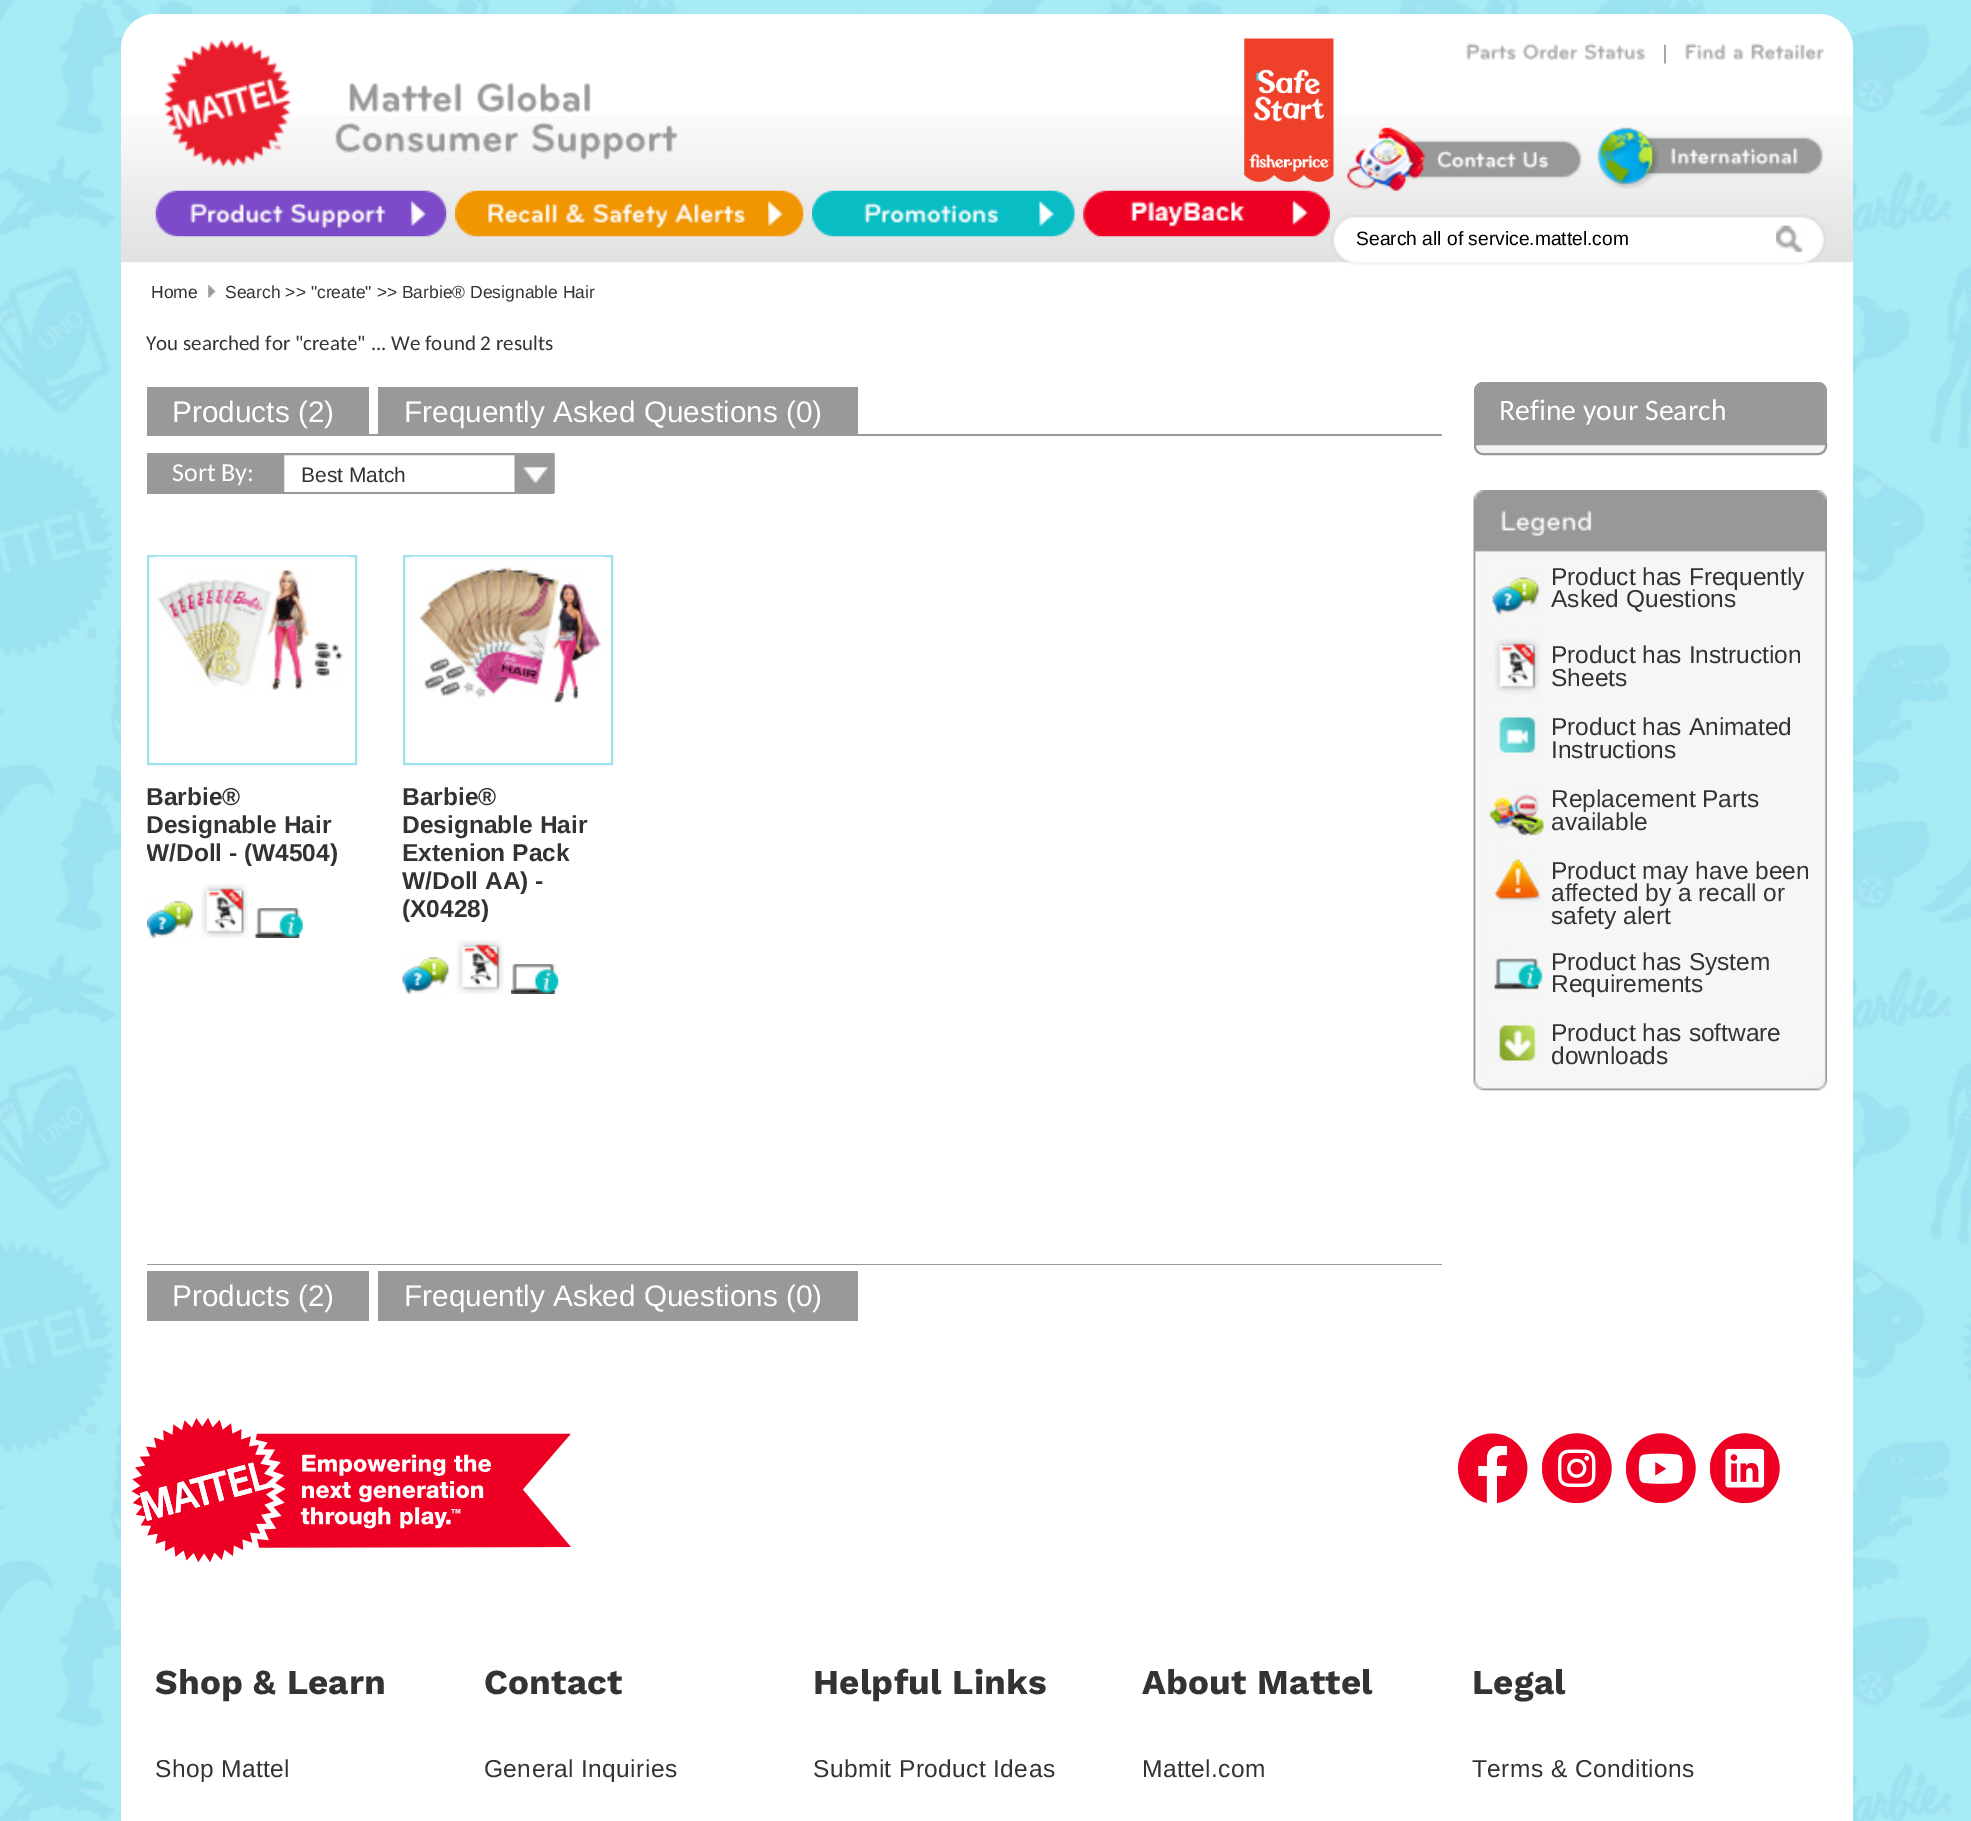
%!PS-Adobe-3.0
%%BoundingBox: 0 0 1971 1821
%%LanguageLevel: 3
%%Pages: 1
%%EndComments
%%BeginProlog
/setink { dup -16 bitshift 255 div exch dup -8 bitshift 255 and 255 div exch 255 and 255 div setrgbcolor } def
/usefont { [ exch dup neg 0 0 3 -1 roll 0 0 ] selectfont } def
/rrect { 5 dict begin { /r /h /w /y /x } { exch def } forall
  x r add y moveto x w add y 2 copy h add r arct x w add y h add x 1 index r arct
  x y h add x y r arct x y 2 copy exch w add exch r arct closepath end } def
/drawimage { 5 dict begin { /h /w /y /x /name } { exch def } forall
  gsave x y translate w h scale
  w h 8 [w 0 0 h 0 0] name (r) file false 3 colorimage grestore end } def
%%EndProlog
%%BeginSetup
<< /PageSize [1971 1821] >> setpagedevice
%%EndSetup
%%Page: 1 1
0 1821 translate 1 -1 scale
4 setmiterlimit
16#FFFFFF setink
0 0 1971 1821 rectfill
(img1.raw) 0 0 1971 1821 drawimage
121 14 1732 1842 35 rrect fill
156 14 moveto 1818 14 lineto 1837.5 14 1853 29.5 1853 49 curveto 1853 263 lineto 121 263 lineto 121 49 lineto 121 29.5 136.5 14 156 14 curveto closepath fill
(img2.raw) 121 116 1732 147 drawimage
(img3.raw) 164 40 127 127 drawimage
(img4.raw) 1244 38 90 144 drawimage
(img5.raw) 1466 43 50 17 drawimage
(img6.raw) 1522 43 56 17 drawimage
(img7.raw) 1583 43 63 17 drawimage
/Carlito-Bold 21 usefont
16#A9A7A7 setink
1660 60 moveto (|) show
(img8.raw) 1685 43 41 17 drawimage
(img9.raw) 1732 48 12 12 drawimage
(img10.raw) 1751 43 73 17 drawimage
(img11.raw) 1347 127 236 64 drawimage
(img12.raw) 1597 127 227 62 drawimage
(img13.raw) 349 82 113 31 drawimage
(img14.raw) 477 82 114 31 drawimage
(img15.raw) 335 122 184 31 drawimage
(img16.raw) 531 122 147 38 drawimage
(img17.raw) 155 190 292 47 drawimage
(img18.raw) 455 190 349 47 drawimage
(img19.raw) 812 190 263 47 drawimage
(img20.raw) 1083 190 247 47 drawimage
(img21.raw) 1331 215 495 50 drawimage
/LiberationSans-Regular 19.25 usefont
16#000000 setink
1356 245 moveto (Search all of service.mattel.com) show
(img22.raw) 1776 225 27 27 drawimage
/LiberationSans-Regular 17.5 usefont
16#333333 setink
151 298 moveto (Home) show
(img23.raw) 208 285 8 13 drawimage
225 298 moveto (Search >> "create" >> Barbie® Designable Hair) show
/Carlito-Regular 21 usefont
146 350 moveto (You searched for "create" ... We found 2 results) show
16#999999 setink
147 434 1295 2 rectfill
147 387 222 47 rectfill
/LiberationSans-Regular 29.75 usefont
16#FFFFFF setink
172 422 moveto (Products \(2\)) show
16#999999 setink
378 387 480 47 rectfill
16#FFFFFF setink
404 422 moveto (Frequently Asked Questions \(0\)) show
(img24.raw) 514 453 41 41 drawimage
16#999999 setink
147 453 135 41 rectfill
/Carlito-Regular 26 usefont
16#FFFFFF setink
172 481 moveto (Sort By:) show
gsave
282 453 271 41 rectclip
16#999999 setink
2 setlinewidth
283 454 304 39 rectstroke
grestore
/LiberationSans-Regular 21 usefont
16#333333 setink
301 482 moveto (Best Match) show
16#9BE2F1 setink
2 setlinewidth
148 556 208 208 rectstroke
(img25.raw) 155 556 194 134 drawimage
/LiberationSans-Bold 24.5 usefont
16#333333 setink
146 805 moveto (Barbie®) show
146 833 moveto (Designable Hair) show
gsave
147 382 1680 883 rectclip
146 861 moveto (W/Doll - \(W4504\)) show
grestore
(img26.raw) 147 901 48 37 drawimage
(img27.raw) 201 884 47 54 drawimage
(img28.raw) 255 908 48 30 drawimage
16#9BE2F1 setink
404 556 208 208 rectstroke
(img29.raw) 411 556 193 147 drawimage
16#333333 setink
[
    [(Barbie®) 402 805]
    [(Designable Hair) 402 833]
    [(Extenion Pack) 402 861]
    [(W/Doll AA\) -) 402 889]
    [(\(X0428\)) 402 917]
] { aload pop moveto show } forall
(img30.raw) 402 957 48 37 drawimage
(img31.raw) 456 940 48 54 drawimage
(img32.raw) 511 964 48 30 drawimage
16#999999 setink
147 1264 1295 1 rectfill
1483 382 moveto 1818 382 lineto 1823 382 1827 386 1827 391 curveto 1827 443 lineto 1474 443 lineto 1474 391 lineto 1474 386 1478 382 1483 382 curveto closepath fill
/Carlito-Regular 29.75 usefont
16#FFFFFF setink
1499 420 moveto (Refine your Search) show
16#F3F3F3 setink
1475 444 moveto 1826 444 lineto 1826 446 lineto 1826 450.5 1822.5 454 1818 454 curveto 1483 454 lineto 1478.5 454 1475 450.5 1475 446 curveto closepath gsave fill grestore
16#999999 setink
stroke
(img33.raw) 1473 490 354 601 drawimage
/LiberationSans-Regular 24.5 usefont
16#333333 setink
[
    [(Product has Frequently) 1551 585]
    [(Asked Questions) 1551 607]
    [(Product has Instruction) 1551 663]
    [(Sheets) 1551 686]
    [(Product has Animated) 1551 735]
    [(Instructions) 1551 758]
    [(Replacement Parts) 1551 807]
    [(available) 1551 830]
    [(Product may have been) 1551 879]
    [(affected by a recall or) 1551 901]
    [(safety alert) 1551 924]
    [(Product has System) 1551 970]
    [(Requirements) 1551 992]
    [(Product has software) 1551 1041]
    [(downloads) 1551 1064]
] { aload pop moveto show } forall
16#999999 setink
147 1271 222 50 rectfill
/LiberationSans-Regular 29.75 usefont
16#FFFFFF setink
172 1306 moveto (Products \(2\)) show
16#999999 setink
378 1271 480 50 rectfill
16#FFFFFF setink
404 1306 moveto (Frequently Asked Questions \(0\)) show
(img34.raw) 131 1417 440 146 drawimage
(img35.raw) 1458 1433 70 70 drawimage
(img36.raw) 1542 1433 70 70 drawimage
(img37.raw) 1626 1433 70 70 drawimage
(img38.raw) 1710 1433 70 70 drawimage
/WorkSans-Bold 35 usefont
16#333333 setink
155 1694 moveto 0.25 0 (Shop & Learn) ashow
/LiberationSans-Regular 24.5 usefont
155 1777 moveto 0.4 0 (Shop Mattel) ashow
/WorkSans-Bold 35 usefont
484 1694 moveto 0.25 0 (Contact) ashow
/LiberationSans-Regular 24.5 usefont
484 1777 moveto 0.4 0 (General Inquiries) ashow
/WorkSans-Bold 35 usefont
813 1694 moveto 0.25 0 (Helpful Links) ashow
/LiberationSans-Regular 24.5 usefont
813 1777 moveto 0.4 0 (Submit Product Ideas) ashow
/WorkSans-Bold 35 usefont
1142 1694 moveto 0.25 0 (About Mattel) ashow
/LiberationSans-Regular 24.5 usefont
1142 1777 moveto 0.4 0 (Mattel.com) ashow
/WorkSans-Bold 35 usefont
1472 1694 moveto 0.25 0 (Legal) ashow
/LiberationSans-Regular 24.5 usefont
1472 1777 moveto 0.4 0 (Terms & Conditions) ashow
showpage
%%EOF
